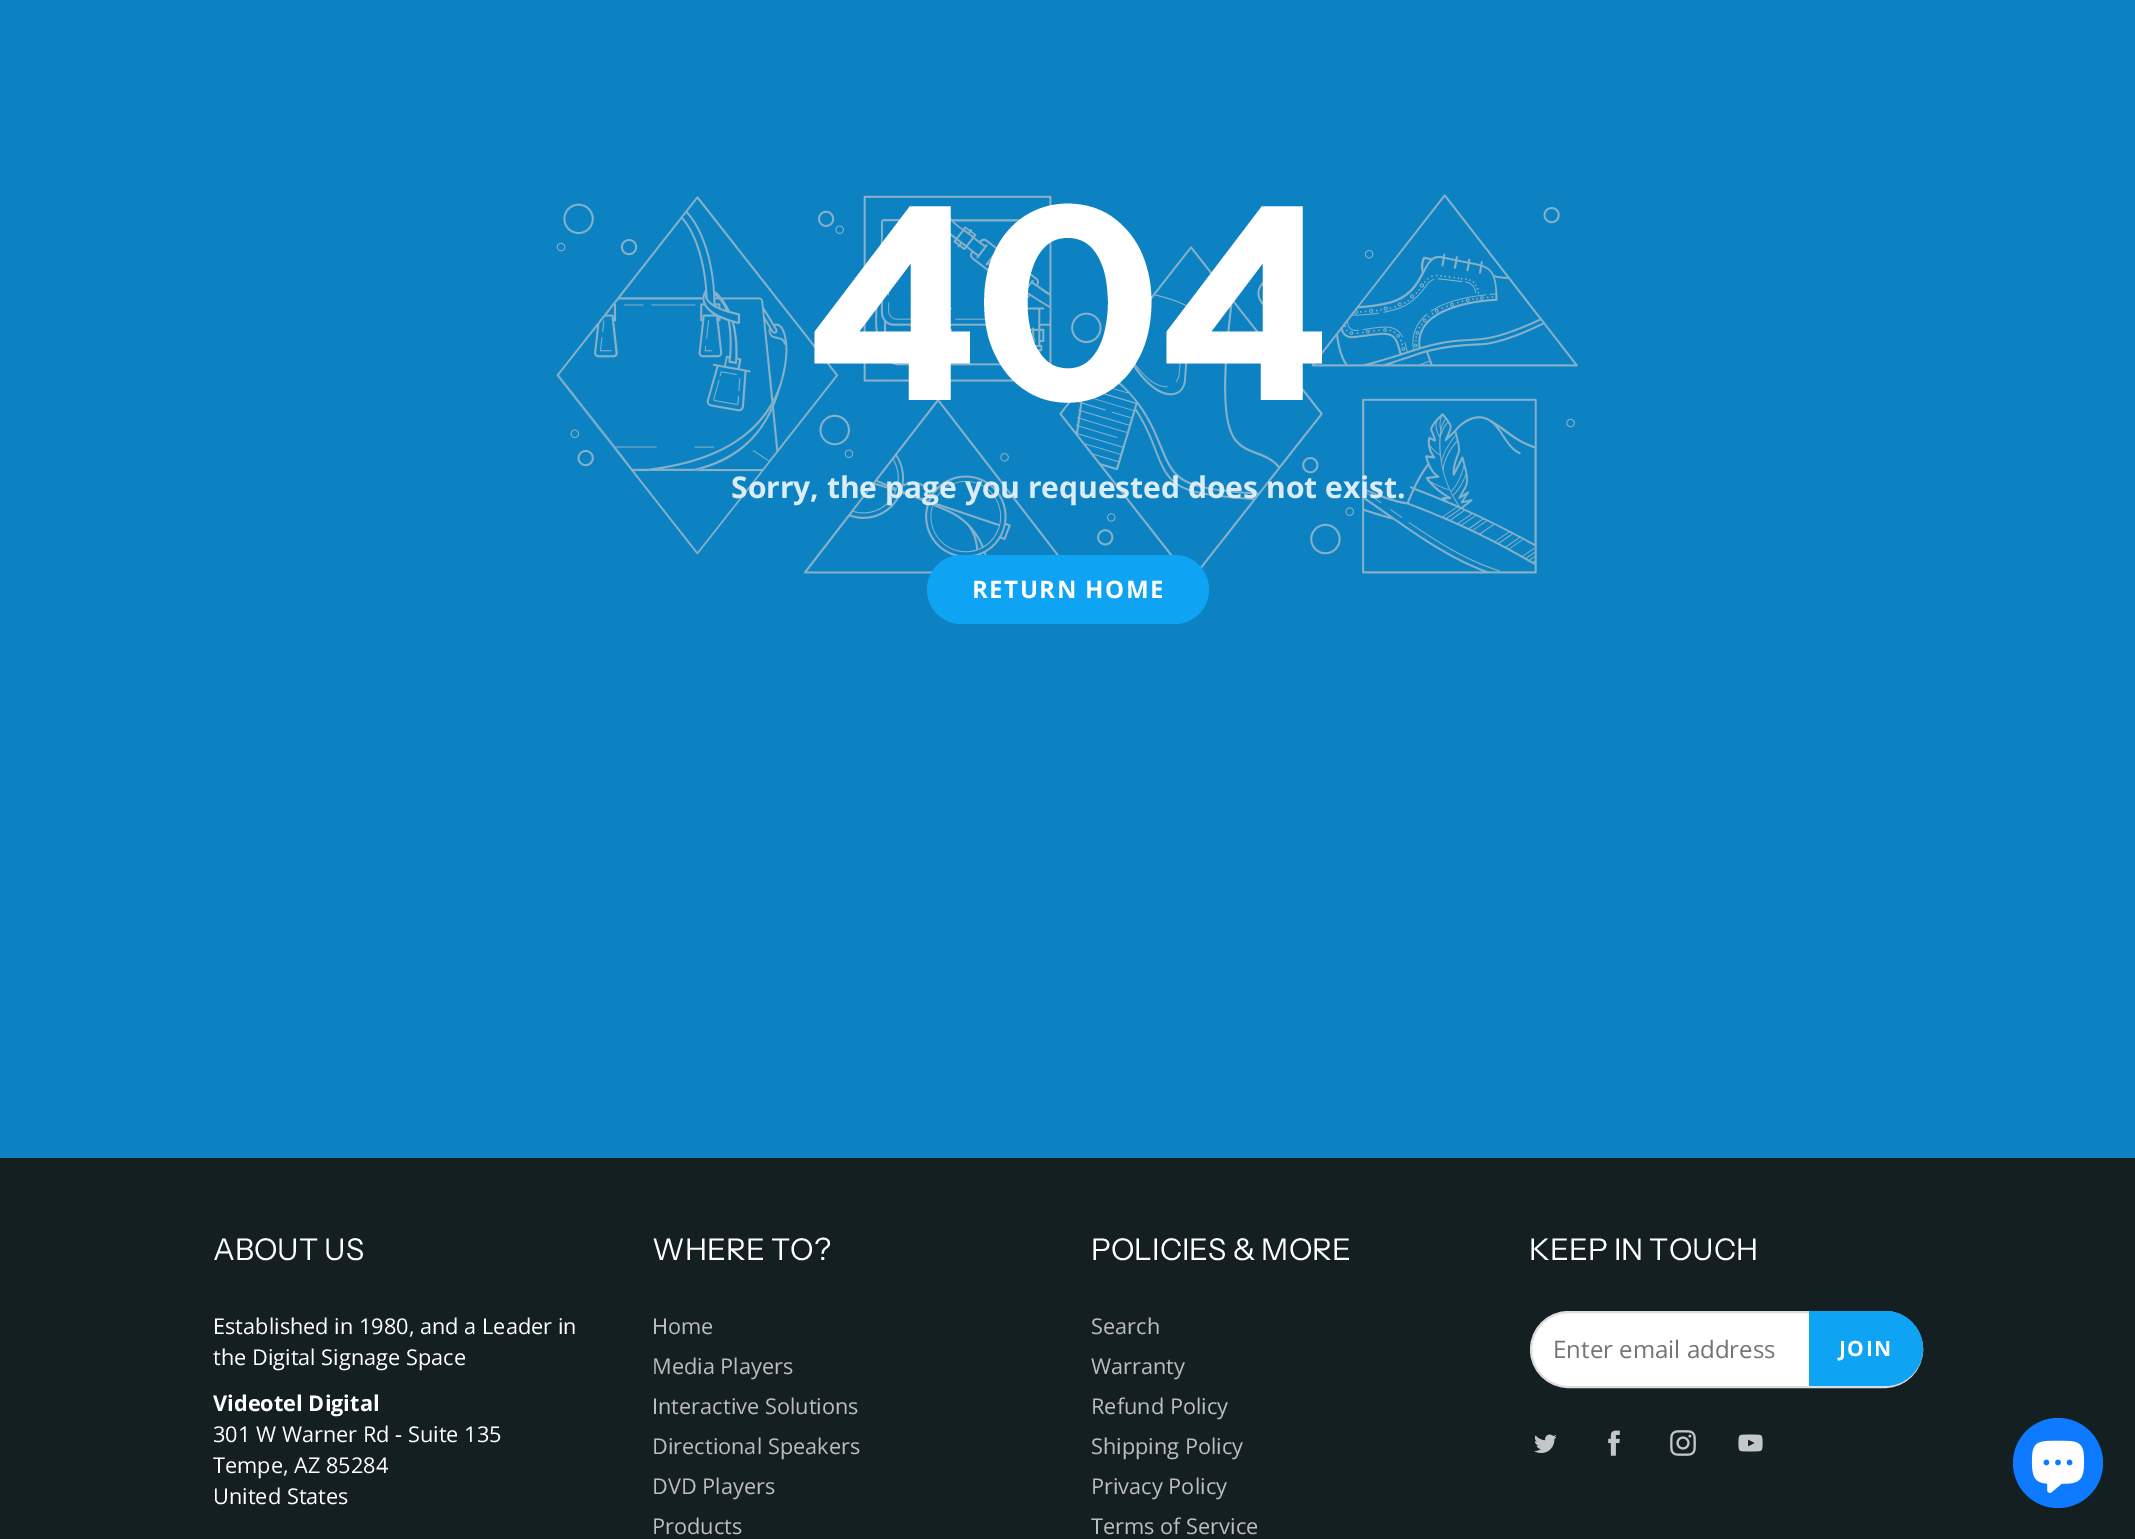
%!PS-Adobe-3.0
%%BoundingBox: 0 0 2135 1539
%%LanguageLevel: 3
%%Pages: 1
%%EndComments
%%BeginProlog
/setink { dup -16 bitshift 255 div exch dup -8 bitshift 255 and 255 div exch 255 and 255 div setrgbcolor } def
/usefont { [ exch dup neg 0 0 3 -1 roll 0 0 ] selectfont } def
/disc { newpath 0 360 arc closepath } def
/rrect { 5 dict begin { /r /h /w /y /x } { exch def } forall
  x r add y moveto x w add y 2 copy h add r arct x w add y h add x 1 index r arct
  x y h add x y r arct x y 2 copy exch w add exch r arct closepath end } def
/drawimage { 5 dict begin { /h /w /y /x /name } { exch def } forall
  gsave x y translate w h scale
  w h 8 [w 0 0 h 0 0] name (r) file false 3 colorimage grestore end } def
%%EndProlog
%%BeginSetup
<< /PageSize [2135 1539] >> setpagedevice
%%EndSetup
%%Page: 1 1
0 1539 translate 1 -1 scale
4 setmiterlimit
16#141F21 setink
0 0 2135 1539 rectfill
16#0C82C2 setink
0 0 2135 1158 rectfill
(img1.raw) 556 194 1022 380 drawimage
/InstrumentSans-Bold 270 usefont
16#FFFFFF setink
808 400 moveto (404) show
/OpenSans-Bold 30 usefont
16#DAECF5 setink
731 498 moveto (Sorry, the page you requested does not exist.) show
16#0FA3F3 setink
927 555 282 69 34.5 rrect fill
/OpenSans-Bold 24 usefont
16#FFFFFF setink
972 598 moveto 1.5 0 (RETURN HOME) ashow
/InstrumentSans-Regular 30 usefont
213 1260 moveto (ABOUT US) show
/OpenSans-Regular 21.75 usefont
213 1334 moveto (Established in 1980, and a Leader in) show
213 1365 moveto (the Digital Signage Space) show
/OpenSans-Bold 21.75 usefont
213 1411 moveto (Videotel Digital) show
/OpenSans-Regular 21.75 usefont
[
    [(301 W Warner Rd - Suite 135) 213 1442]
    [(Tempe, AZ 85284) 213 1473]
    [(United States) 213 1504]
] { aload pop moveto show } forall
/InstrumentSans-Regular 30 usefont
652 1260 moveto (WHERE TO?) show
/OpenSans-Regular 21.75 usefont
16#BDBDBD setink
[
    [(Home) 652 1334]
    [(Media Players) 652 1374]
    [(Interactive Solutions) 652 1414]
    [(Directional Speakers) 652 1454]
    [(DVD Players) 652 1494]
    [(Products) 652 1534]
] { aload pop moveto show } forall
/InstrumentSans-Regular 30 usefont
16#FFFFFF setink
1091 1260 moveto (POLICIES & MORE) show
/OpenSans-Regular 21.75 usefont
16#BDBDBD setink
[
    [(Search) 1091 1334]
    [(Warranty) 1091 1374]
    [(Refund Policy) 1091 1414]
    [(Shipping Policy) 1091 1454]
    [(Privacy Policy) 1091 1494]
    [(Terms of Service) 1091 1534]
] { aload pop moveto show } forall
/InstrumentSans-Regular 30 usefont
16#FFFFFF setink
1529 1260 moveto (KEEP IN TOUCH) show
1531 1312 391 75 37.5 rrect gsave fill grestore
16#DDDDDD setink
2 setlinewidth
stroke
/OpenSans-Regular 24 usefont
16#757575 setink
1553 1358 moveto (Enter email address) show
16#0FA3F3 setink
1809 1311 moveto 1885.5 1311 lineto 1906 1311 1923 1328 1923 1348.5 curveto 1923 1369 1906 1386 1885.5 1386 curveto 1809 1386 lineto closepath fill
/OpenSans-Bold 21 usefont
16#FFFFFF setink
1839 1356 moveto 1.5 0 (JOIN) ashow
(img2.raw) 1534 1434 23 19 drawimage
(img3.raw) 1608 1430 12 26 drawimage
(img4.raw) 1670 1430 26 26 drawimage
(img5.raw) 1738 1434 25 18 drawimage
16#0D7AFF setink
2058 1463 45 disc fill
(img6.raw) 2031 1440 54 53 drawimage
showpage
%%EOF
